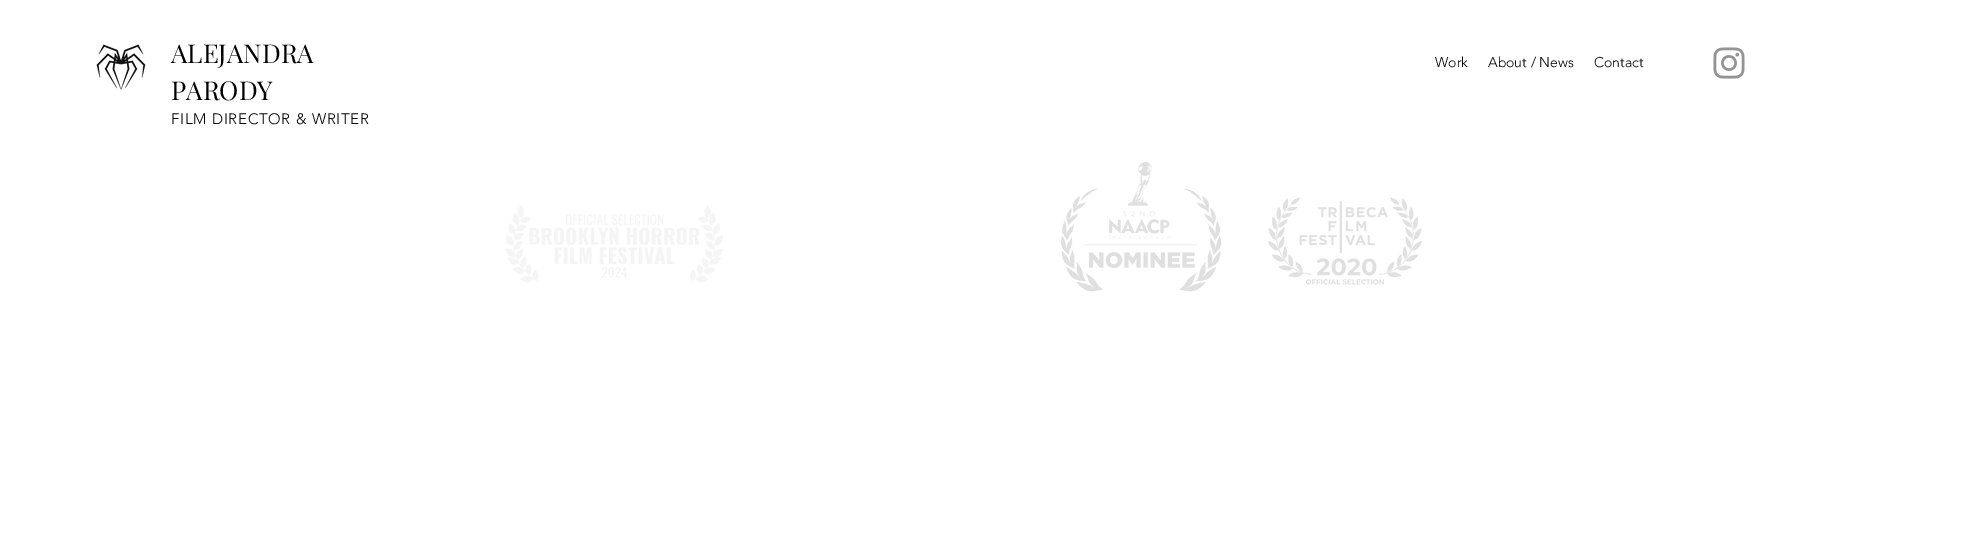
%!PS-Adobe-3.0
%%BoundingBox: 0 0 1979 538
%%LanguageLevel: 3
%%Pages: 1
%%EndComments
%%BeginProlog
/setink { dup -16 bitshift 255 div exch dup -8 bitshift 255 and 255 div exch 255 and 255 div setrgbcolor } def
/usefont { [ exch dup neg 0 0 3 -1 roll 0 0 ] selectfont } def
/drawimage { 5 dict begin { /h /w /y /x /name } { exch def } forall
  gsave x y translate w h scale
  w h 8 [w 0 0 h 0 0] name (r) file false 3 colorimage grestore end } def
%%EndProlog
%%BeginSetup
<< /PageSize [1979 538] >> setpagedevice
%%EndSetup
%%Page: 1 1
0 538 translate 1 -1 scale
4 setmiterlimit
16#FFFFFF setink
0 0 1979 538 rectfill
(img1.raw) 96 44 50 46 drawimage
/PlayfairDisplay-Regular 26 usefont
16#000000 setink
171 63 moveto (ALEJANDRA) show
171 100 moveto (PARODY) show
/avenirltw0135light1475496-Light 15 usefont
171 124 moveto 0.75 0 (FILM DIRECTOR & WRITER) ashow
/avenirltw0135light1475496-Light 14 usefont
[
    [(Work) 1435 67]
    [(About / News) 1488 67]
    [(Contact) 1594 67]
] { aload pop moveto show } forall
(img2.raw) 1713 47 32 32 drawimage
(img3.raw) 505 205 218 78 drawimage
(img4.raw) 1061 162 161 130 drawimage
(img5.raw) 1268 197 154 88 drawimage
showpage
%%EOF
